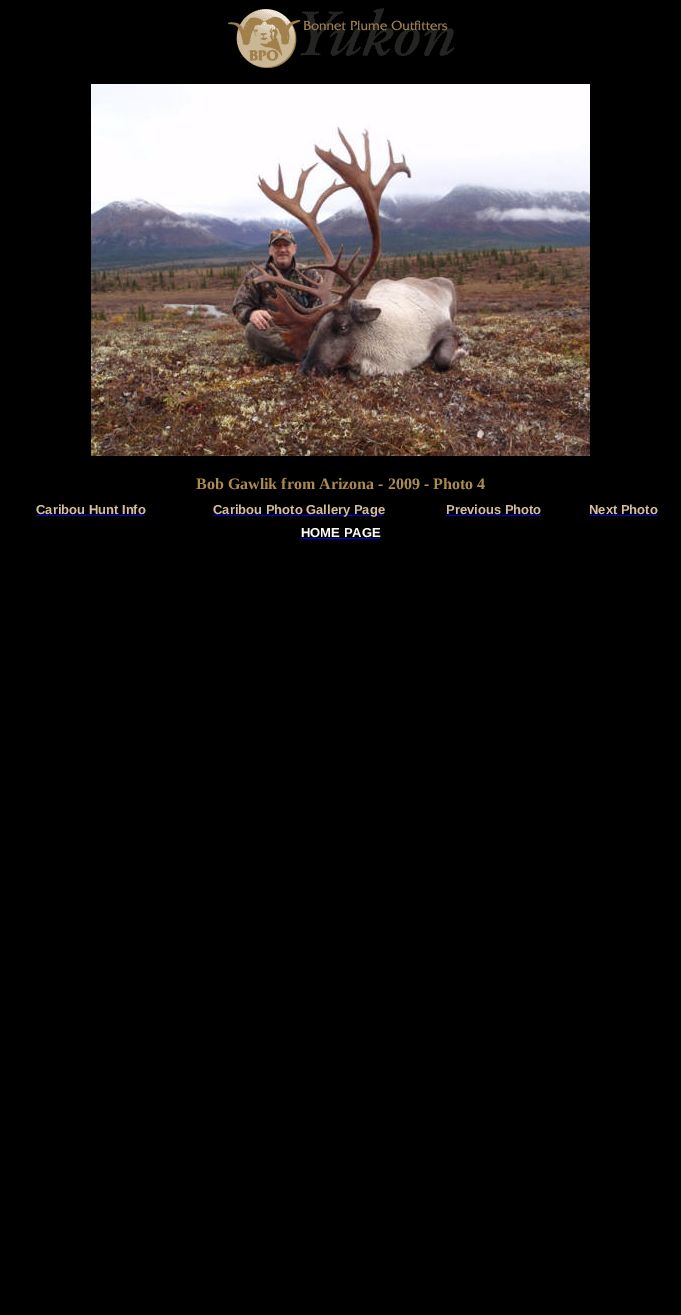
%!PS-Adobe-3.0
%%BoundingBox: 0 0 681 1315
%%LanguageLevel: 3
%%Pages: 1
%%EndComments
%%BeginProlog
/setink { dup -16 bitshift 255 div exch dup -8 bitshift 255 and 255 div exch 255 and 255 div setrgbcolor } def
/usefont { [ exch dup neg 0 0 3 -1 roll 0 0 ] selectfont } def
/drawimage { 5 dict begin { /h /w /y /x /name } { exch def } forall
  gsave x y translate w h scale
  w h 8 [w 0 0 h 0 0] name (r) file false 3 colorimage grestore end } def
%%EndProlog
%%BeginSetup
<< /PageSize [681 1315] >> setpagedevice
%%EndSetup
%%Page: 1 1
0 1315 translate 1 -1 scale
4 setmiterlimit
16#000000 setink
0 0 681 1315 rectfill
(img1.raw) 228 8 226 60 drawimage
(img2.raw) 91 84 499 372 drawimage
/LiberationSerif-Bold 16 usefont
16#AB8C4E setink
196 489 moveto (Bob Gawlik from Arizona - 2009 - Photo 4) show
/LiberationSans-Bold 13 usefont
16#D8C096 setink
36 514 moveto (Caribou Hunt Info) show
16#0000EE setink
36 515 109 1 rectfill
213 515 171 1 rectfill
16#D8C096 setink
213 514 moveto (Caribou Photo Gallery Page) show
446 514 moveto (Previous Photo) show
16#0000EE setink
446 515 95 1 rectfill
16#D8C096 setink
589 514 moveto (Next Photo) show
16#0000EE setink
589 515 69 1 rectfill
16#FFFFFF setink
301 537 moveto (HOME PAGE) show
16#0000EE setink
301 538 79 1 rectfill
showpage
%%EOF
